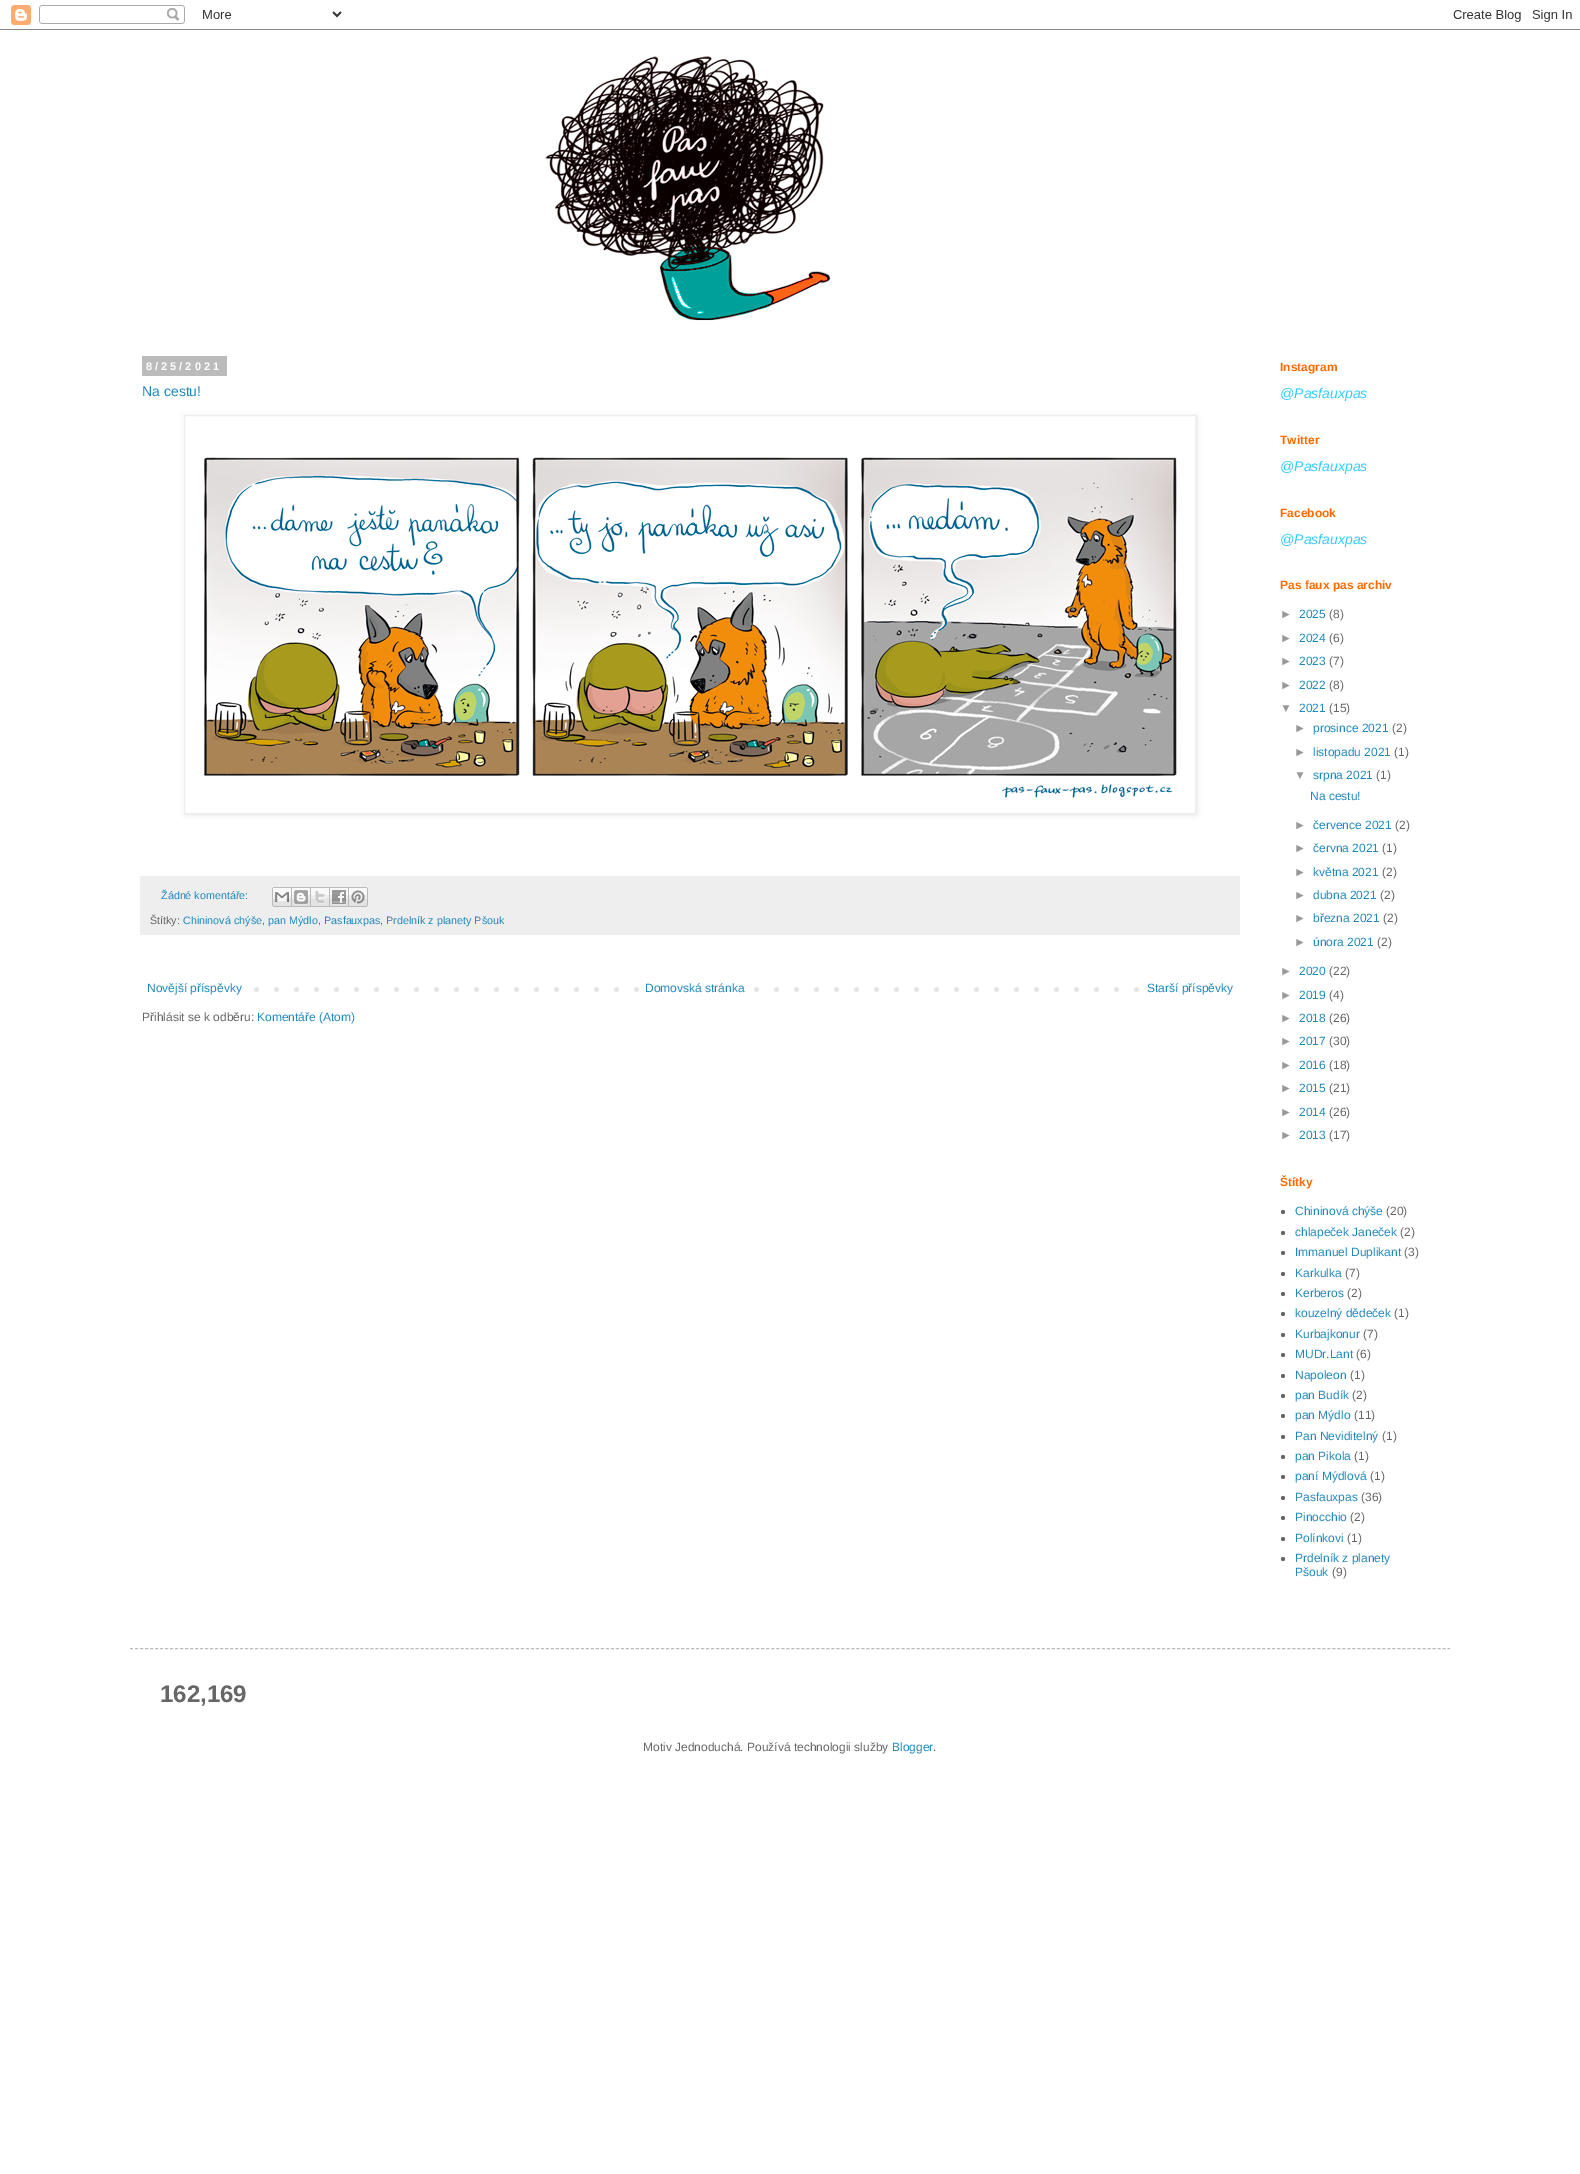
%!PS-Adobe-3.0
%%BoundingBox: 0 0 1580 2174
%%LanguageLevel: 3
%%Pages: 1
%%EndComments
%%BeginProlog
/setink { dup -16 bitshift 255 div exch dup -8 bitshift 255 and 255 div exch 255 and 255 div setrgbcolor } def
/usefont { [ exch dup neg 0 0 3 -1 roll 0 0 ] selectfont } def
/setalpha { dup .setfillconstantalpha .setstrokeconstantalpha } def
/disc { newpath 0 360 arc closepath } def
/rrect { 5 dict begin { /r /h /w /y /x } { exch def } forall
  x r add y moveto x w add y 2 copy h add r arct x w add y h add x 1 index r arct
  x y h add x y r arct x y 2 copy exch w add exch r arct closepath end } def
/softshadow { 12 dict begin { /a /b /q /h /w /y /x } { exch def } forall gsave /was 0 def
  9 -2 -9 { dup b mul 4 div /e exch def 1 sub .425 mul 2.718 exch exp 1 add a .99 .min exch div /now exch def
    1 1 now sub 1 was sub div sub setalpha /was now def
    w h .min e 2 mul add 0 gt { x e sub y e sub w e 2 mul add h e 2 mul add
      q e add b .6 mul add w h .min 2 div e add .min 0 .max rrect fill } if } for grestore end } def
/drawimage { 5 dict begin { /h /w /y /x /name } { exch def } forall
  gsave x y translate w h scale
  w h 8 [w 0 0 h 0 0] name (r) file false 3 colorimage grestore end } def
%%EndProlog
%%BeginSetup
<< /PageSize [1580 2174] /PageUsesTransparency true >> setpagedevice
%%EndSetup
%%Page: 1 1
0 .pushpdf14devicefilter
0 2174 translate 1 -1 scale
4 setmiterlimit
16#FFFFFF setink
0 0 1580 2174 rectfill
(img1.raw) 0 5 1580 25 drawimage
(img2.raw) 545 56 285 265 drawimage
16#BBBBBB setink
142 356 85 20 rectfill
/LiberationSans-Bold 11 usefont
16#FFFFFF setink
146 370 moveto 3 0 (8/25/2021) ashow
/LiberationSans-Regular 14 usefont
16#2288BB setink
142 396 moveto (Na cestu!) show
gsave
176 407 moveto 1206 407 lineto 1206 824 lineto 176 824 lineto closepath 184 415 moveto 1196 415 lineto 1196 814 lineto 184 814 lineto closepath eoclip newpath
16#000000 setink
185 416 1012 399 0 2.5 0.1 softshadow
grestore
16#EEEEEE setink
184.5 415.5 1011 398 rectstroke
(img3.raw) 204 457 973 341 drawimage
140 876 1100 59 rectfill
/LiberationSans-Regular 10.75 usefont
16#2288BB setink
161 899 moveto (Žádné komentáře:) show
(img4.raw) 272 887 20 20 drawimage
(img5.raw) 292 887 19 20 drawimage
(img6.raw) 311 887 19 20 drawimage
(img7.raw) 330 887 19 20 drawimage
(img8.raw) 349 887 19 20 drawimage
16#666666 setink
150 924 moveto (Štítky:) show
16#2288BB setink
183 924 moveto (Chininová chýše) show
16#666666 setink
262 924 moveto (,) show
16#2288BB setink
268 924 moveto (pan Mýdlo) show
16#666666 setink
318 924 moveto (,) show
16#2288BB setink
324 924 moveto (Pasfauxpas) show
16#666666 setink
380 924 moveto (,) show
16#2288BB setink
386 924 moveto (Prdelník z planety Pšouk) show
(img9.raw) 254 987 885 5 drawimage
/LiberationSans-Regular 12 usefont
147 992 moveto (Novější příspěvky) show
16#FFFFFF setink
654 987 86 5 rectfill
16#2288BB setink
645 992 moveto (Domovská stránka) show
1147 992 moveto (Starší příspěvky) show
16#666666 setink
142 1021 moveto (Přihlásit se k odběru:) show
16#2288BB setink
257 1021 moveto (Komentáře \(Atom\)) show
/LiberationSans-Bold 12 usefont
16#FF6A00 setink
1280 371 moveto (Instagram) show
/LiberationSans-Italic 14 usefont
16#33CCFF setink
1280 398 moveto (@Pasfauxpas) show
/LiberationSans-Bold 12 usefont
16#FF6A00 setink
1280 444 moveto (Twitter) show
/LiberationSans-Italic 14 usefont
16#33CCFF setink
1280 471 moveto (@Pasfauxpas) show
/LiberationSans-Bold 12 usefont
16#FF6A00 setink
1280 517 moveto (Facebook) show
/LiberationSans-Italic 14 usefont
16#33CCFF setink
1280 544 moveto (@Pasfauxpas) show
/LiberationSans-Bold 12 usefont
16#FF6A00 setink
1280 589 moveto (Pas faux pas archiv) show
/LiberationSans-Regular 12 usefont
16#999999 setink
1280 618 moveto (►) show
16#2288BB setink
1299 618 moveto (2025) show
16#666666 setink
1329 618 moveto (\(8\)) show
16#999999 setink
1280 642 moveto (►) show
16#2288BB setink
1299 642 moveto (2024) show
16#666666 setink
1329 642 moveto (\(6\)) show
16#999999 setink
1280 665 moveto (►) show
16#2288BB setink
1299 665 moveto (2023) show
16#666666 setink
1329 665 moveto (\(7\)) show
16#999999 setink
1280 689 moveto (►) show
16#2288BB setink
1299 689 moveto (2022) show
16#666666 setink
1329 689 moveto (\(8\)) show
16#999999 setink
1280 712 moveto (▼) show
16#2288BB setink
1299 712 moveto (2021) show
16#666666 setink
1329 712 moveto (\(15\)) show
16#999999 setink
1294 732 moveto (►) show
16#2288BB setink
1313 732 moveto (prosince 2021) show
16#666666 setink
1392 732 moveto (\(2\)) show
16#999999 setink
1294 756 moveto (►) show
16#2288BB setink
1313 756 moveto (listopadu 2021) show
16#666666 setink
1394 756 moveto (\(1\)) show
16#999999 setink
1294 779 moveto (▼) show
16#2288BB setink
1313 779 moveto (srpna 2021) show
16#666666 setink
1376 779 moveto (\(1\)) show
16#2288BB setink
1310 800 moveto (Na cestu!) show
16#999999 setink
1294 829 moveto (►) show
16#2288BB setink
1313 829 moveto (července 2021) show
16#666666 setink
1395 829 moveto (\(2\)) show
16#999999 setink
1294 852 moveto (►) show
16#2288BB setink
1313 852 moveto (června 2021) show
16#666666 setink
1382 852 moveto (\(1\)) show
16#999999 setink
1294 876 moveto (►) show
16#2288BB setink
1313 876 moveto (května 2021) show
16#666666 setink
1382 876 moveto (\(2\)) show
16#999999 setink
1294 899 moveto (►) show
16#2288BB setink
1313 899 moveto (dubna 2021) show
16#666666 setink
1380 899 moveto (\(2\)) show
16#999999 setink
1294 922 moveto (►) show
16#2288BB setink
1313 922 moveto (března 2021) show
16#666666 setink
1383 922 moveto (\(2\)) show
16#999999 setink
1294 946 moveto (►) show
16#2288BB setink
1313 946 moveto (února 2021) show
16#666666 setink
1377 946 moveto (\(2\)) show
16#999999 setink
1280 975 moveto (►) show
16#2288BB setink
1299 975 moveto (2020) show
16#666666 setink
1329 975 moveto (\(22\)) show
16#999999 setink
1280 999 moveto (►) show
16#2288BB setink
1299 999 moveto (2019) show
16#666666 setink
1329 999 moveto (\(4\)) show
16#999999 setink
1280 1022 moveto (►) show
16#2288BB setink
1299 1022 moveto (2018) show
16#666666 setink
1329 1022 moveto (\(26\)) show
16#999999 setink
1280 1045 moveto (►) show
16#2288BB setink
1299 1045 moveto (2017) show
16#666666 setink
1329 1045 moveto (\(30\)) show
16#999999 setink
1280 1069 moveto (►) show
16#2288BB setink
1299 1069 moveto (2016) show
16#666666 setink
1329 1069 moveto (\(18\)) show
16#999999 setink
1280 1092 moveto (►) show
16#2288BB setink
1299 1092 moveto (2015) show
16#666666 setink
1329 1092 moveto (\(21\)) show
16#999999 setink
1280 1116 moveto (►) show
16#2288BB setink
1299 1116 moveto (2014) show
16#666666 setink
1329 1116 moveto (\(26\)) show
16#999999 setink
1280 1139 moveto (►) show
16#2288BB setink
1299 1139 moveto (2013) show
16#666666 setink
1329 1139 moveto (\(17\)) show
/LiberationSans-Bold 12 usefont
16#FF6A00 setink
1280 1186 moveto (Štítky) show
16#666666 setink
1283 1212 2 disc fill
/LiberationSans-Regular 12 usefont
16#2288BB setink
1295 1215 moveto (Chininová chýše) show
16#666666 setink
1386 1215 moveto (\(20\)) show
1283 1233 2 disc fill
16#2288BB setink
1295 1236 moveto (chlapeček Janeček) show
16#666666 setink
1400 1236 moveto (\(2\)) show
1283 1253 2 disc fill
16#2288BB setink
1295 1256 moveto (Immanuel Duplikant) show
16#666666 setink
1404 1256 moveto (\(3\)) show
1283 1274 2 disc fill
16#2288BB setink
1295 1277 moveto (Karkulka) show
16#666666 setink
1345 1277 moveto (\(7\)) show
1283 1294 2 disc fill
16#2288BB setink
1295 1297 moveto (Kerberos) show
16#666666 setink
1347 1297 moveto (\(2\)) show
1283 1314 2 disc fill
16#2288BB setink
1295 1317 moveto (kouzelný dědeček) show
16#666666 setink
1394 1317 moveto (\(1\)) show
1283 1335 2 disc fill
16#2288BB setink
1295 1338 moveto (Kurbajkonur) show
16#666666 setink
1363 1338 moveto (\(7\)) show
1283 1355 2 disc fill
16#2288BB setink
1295 1358 moveto (MUDr.Lant) show
16#666666 setink
1356 1358 moveto (\(6\)) show
1283 1376 2 disc fill
16#2288BB setink
1295 1379 moveto (Napoleon) show
16#666666 setink
1350 1379 moveto (\(1\)) show
1283 1396 2 disc fill
16#2288BB setink
1295 1399 moveto (pan Budík) show
16#666666 setink
1352 1399 moveto (\(2\)) show
1283 1416 2 disc fill
16#2288BB setink
1295 1419 moveto (pan Mýdlo) show
16#666666 setink
1354 1419 moveto (\(11\)) show
1283 1437 2 disc fill
16#2288BB setink
1295 1440 moveto (Pan Neviditelný) show
16#666666 setink
1382 1440 moveto (\(1\)) show
1283 1457 2 disc fill
16#2288BB setink
1295 1460 moveto (pan Pikola) show
16#666666 setink
1354 1460 moveto (\(1\)) show
1283 1477 2 disc fill
16#2288BB setink
1295 1480 moveto (paní Mýdlová) show
16#666666 setink
1370 1480 moveto (\(1\)) show
1283 1498 2 disc fill
16#2288BB setink
1295 1501 moveto (Pasfauxpas) show
16#666666 setink
1361 1501 moveto (\(36\)) show
1283 1518 2 disc fill
16#2288BB setink
1295 1521 moveto (Pinocchio) show
16#666666 setink
1350 1521 moveto (\(2\)) show
1283 1539 2 disc fill
16#2288BB setink
1295 1542 moveto (Polínkovi) show
16#666666 setink
1347 1542 moveto (\(1\)) show
1283 1559 2 disc fill
16#2288BB setink
1295 1562 moveto (Prdelník z planety) show
1295 1576 moveto (Pšouk) show
16#666666 setink
1332 1576 moveto (\(9\)) show
16#BBBBBB setink
[3 2.01] 0 setdash
130 1648.5 moveto 1450 1648.5 lineto stroke
/LiberationSans-Bold 24 usefont
16#666666 setink
160 1702 moveto (162,169) show
/LiberationSans-Regular 12 usefont
643 1751 moveto (Motiv Jednoduchá. Používá technologii služby) show
16#2288BB setink
892 1751 moveto (Blogger) show
16#666666 setink
933 1751 moveto (.) show
.poppdf14devicefilter showpage
%%EOF
